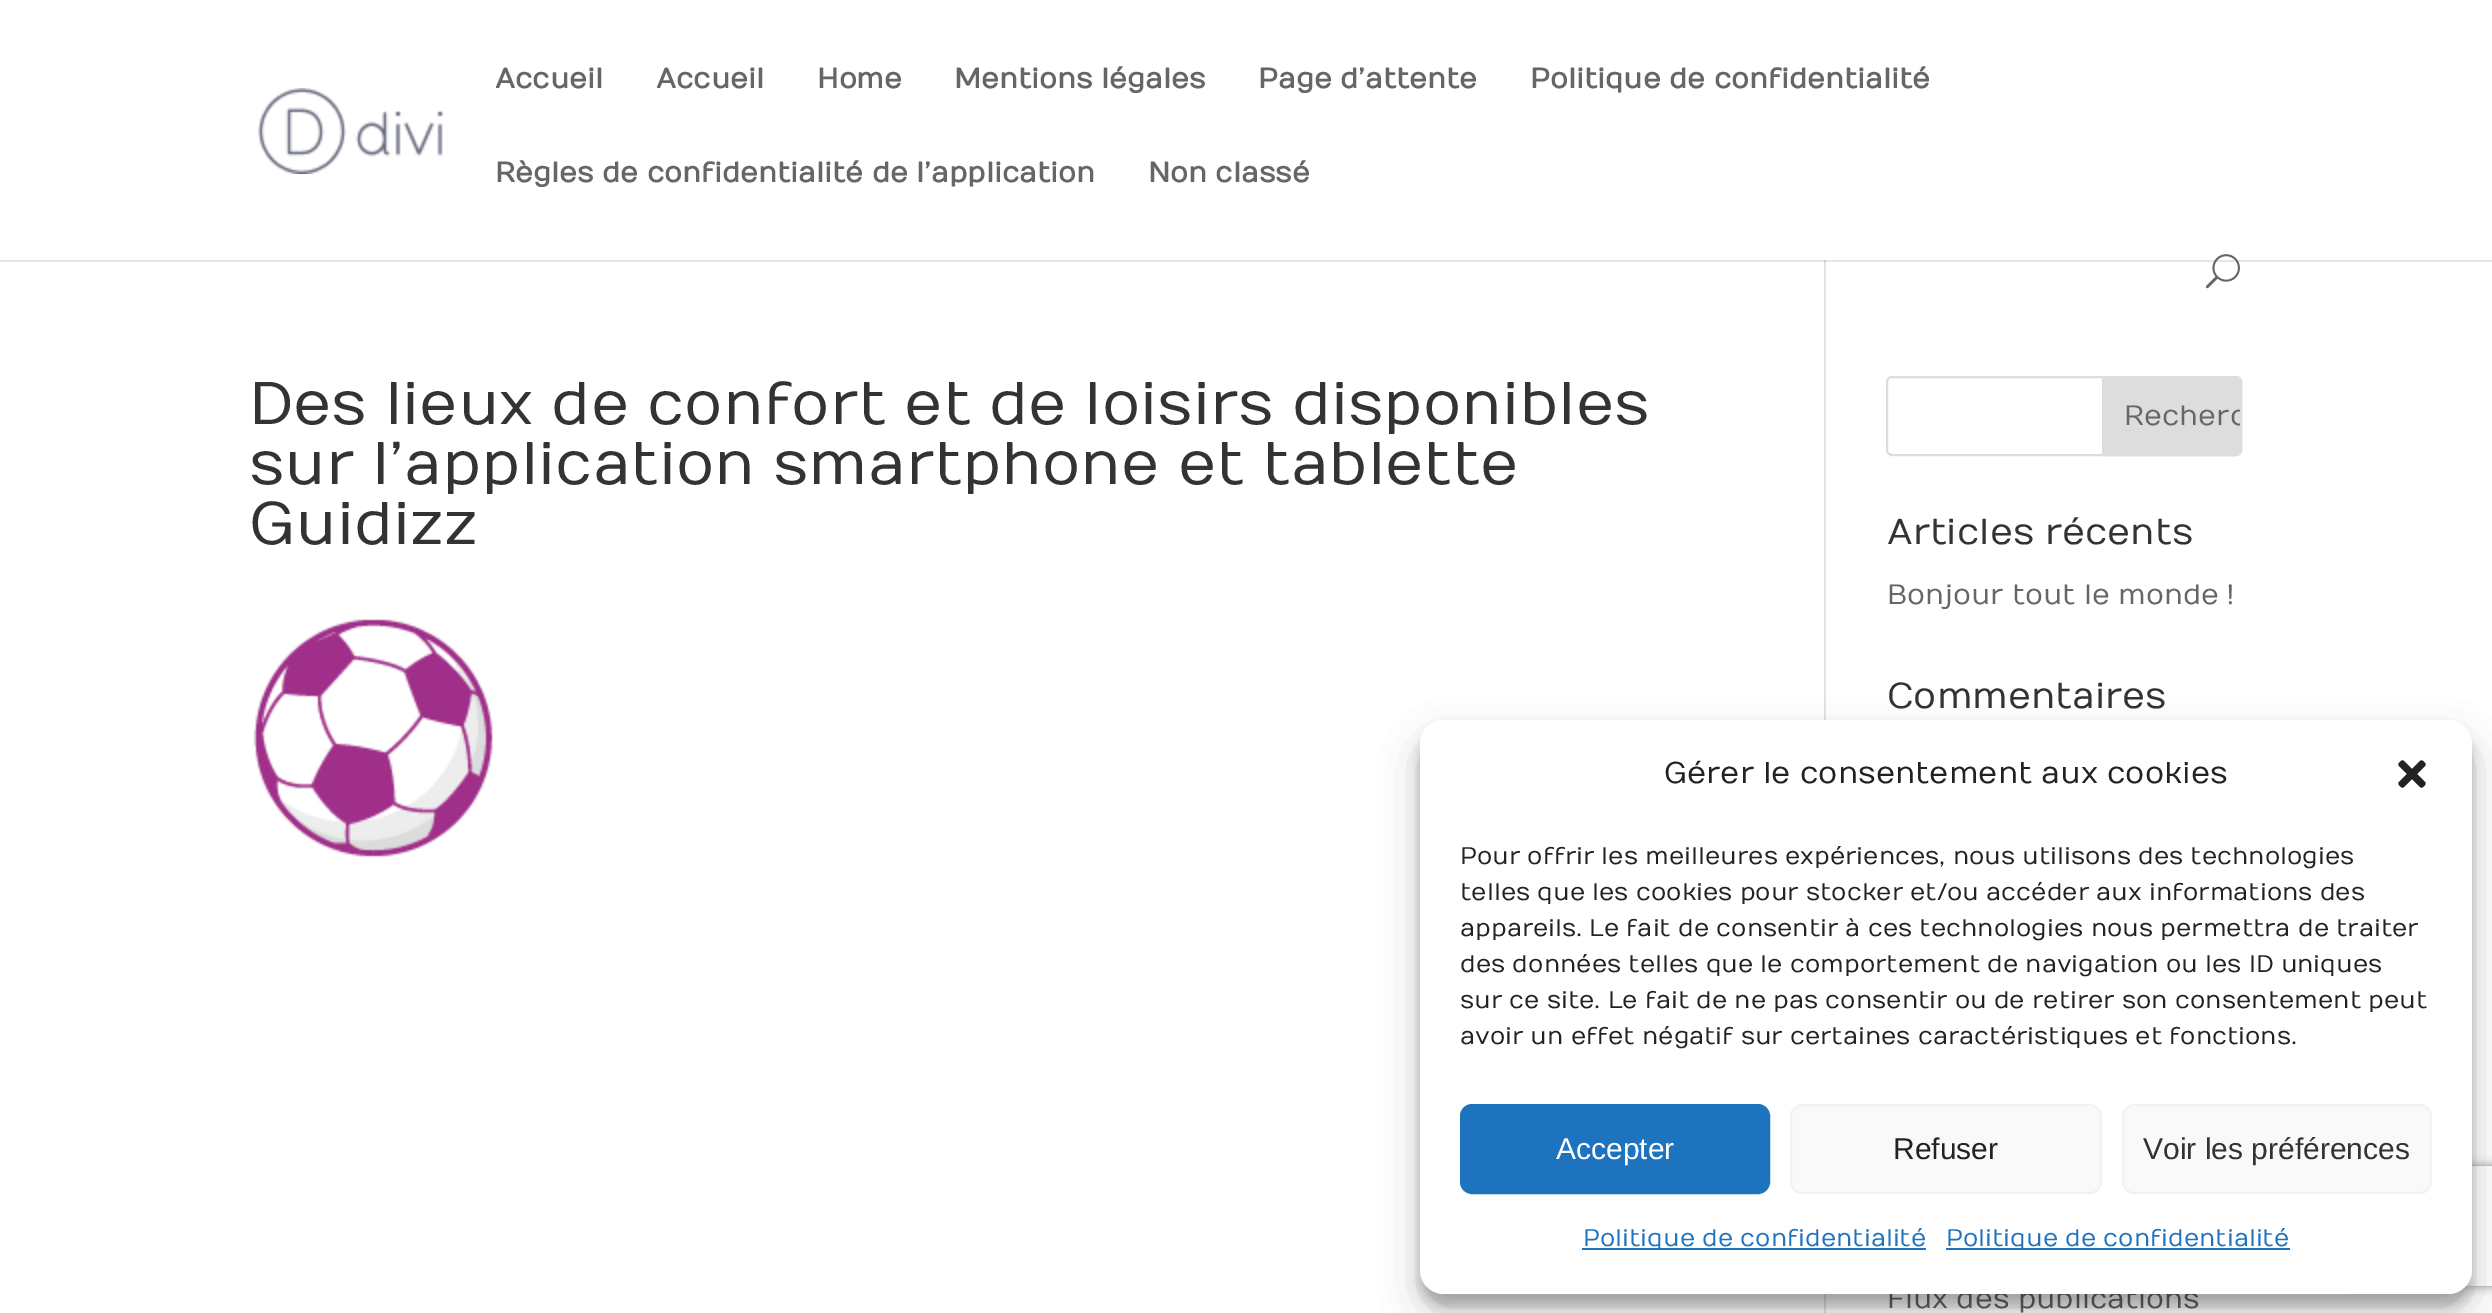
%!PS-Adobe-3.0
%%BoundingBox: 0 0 2492 1313
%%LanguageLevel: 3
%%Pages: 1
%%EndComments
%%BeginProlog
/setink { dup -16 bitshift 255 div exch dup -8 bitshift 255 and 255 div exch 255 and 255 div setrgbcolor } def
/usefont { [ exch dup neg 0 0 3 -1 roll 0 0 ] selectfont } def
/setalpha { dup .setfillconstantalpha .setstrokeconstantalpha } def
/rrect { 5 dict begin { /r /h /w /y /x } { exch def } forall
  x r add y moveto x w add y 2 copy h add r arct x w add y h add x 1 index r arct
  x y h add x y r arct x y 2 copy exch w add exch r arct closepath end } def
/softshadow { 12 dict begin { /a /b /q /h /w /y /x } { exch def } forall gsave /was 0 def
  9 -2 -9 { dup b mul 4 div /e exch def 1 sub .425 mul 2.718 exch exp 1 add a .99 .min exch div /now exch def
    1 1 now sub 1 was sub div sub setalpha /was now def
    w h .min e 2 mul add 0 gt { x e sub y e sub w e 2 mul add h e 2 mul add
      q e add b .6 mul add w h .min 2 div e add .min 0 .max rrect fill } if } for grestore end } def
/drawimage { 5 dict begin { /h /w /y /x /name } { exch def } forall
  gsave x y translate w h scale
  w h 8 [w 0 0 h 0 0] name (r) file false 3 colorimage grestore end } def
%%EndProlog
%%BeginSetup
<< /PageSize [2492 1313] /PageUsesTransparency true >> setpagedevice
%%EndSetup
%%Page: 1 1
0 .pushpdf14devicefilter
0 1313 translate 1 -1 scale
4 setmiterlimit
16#FFFFFF setink
0 0 2492 1313 rectfill
16#E6E6E6 setink
0 260 2492 2 rectfill
(img1.raw) 258 88 186 86 drawimage
/Numans-Bold 28 usefont
16#666666 setink
[
    [(Accueil) 495 88]
    [(Accueil) 656 88]
    [(Home) 817 88]
    [(Mentions légales) 954 88]
    [(Page d’attente) 1258 88]
    [(Politique de confidentialité) 1530 88]
    [(Règles de confidentialité de l’application) 495 182]
    [(Non classé) 1148 182]
] { aload pop moveto show } forall
(img2.raw) 2205 254 35 35 drawimage
16#E2E2E2 setink
1824 260 2 1053 rectfill
16#CBCBCB setink
1824 260 2 2 rectfill
/Numans-Regular 60 usefont
16#333333 setink
[
    [(Des lieux de confort et de loisirs disponibles) 249 424]
    [(sur l’application smartphone et tablette) 249 484]
    [(Guidizz) 249 544]
] { aload pop moveto show } forall
(img3.raw) 253 619 240 238 drawimage
16#DDDDDD setink
2 setlinewidth
1887 377 354 78 5 rrect stroke
2103 377 moveto 2236 377 lineto 2239 377 2241 379 2241 382 curveto 2241 450 lineto 2241 453 2239 455 2236 455 curveto 2103 455 lineto closepath gsave fill grestore
stroke
gsave
2104 378 moveto 2236 378 lineto 2238 378 2240 380 2240 382 curveto 2240 450 lineto 2240 452 2238 454 2236 454 curveto 2104 454 lineto closepath clip newpath
/Numans-Regular 28 usefont
16#666666 setink
2124 425 moveto (Recherc) show
grestore
/Numans-Regular 36 usefont
16#333333 setink
1887 544 moveto (Articles récents) show
/Numans-Regular 28 usefont
16#666666 setink
1887 604 moveto (Bonjour tout le monde) show
2226 604 moveto (!) show
/Numans-Regular 36 usefont
16#333333 setink
1887 708 moveto (Commentaires) show
/Numans-Regular 28 usefont
16#666666 setink
1887 1308 moveto (Flux des publications) show
16#000000 setink
1420 732 1052 574 24 6 0.23 softshadow
1420 740 1052 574 24 20 0.19 softshadow
gsave
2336 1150 moveto 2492 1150 lineto 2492 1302 lineto 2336 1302 lineto closepath 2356 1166 moveto 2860 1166 lineto 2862 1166 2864 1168 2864 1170 curveto 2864 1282 lineto 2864 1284 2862 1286 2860 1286 curveto 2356 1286 lineto 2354 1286 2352 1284 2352 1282 curveto 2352 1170 lineto 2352 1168 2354 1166 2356 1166 curveto closepath eoclip newpath
16#808080 setink
2352 1166 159 120 4 5 1 softshadow
grestore
16#FFFFFF setink
1420 720 1052 574 24 rrect fill
/Numans-Regular 30 usefont
16#222222 setink
1664 783 moveto (Gérer le consentement aux cookies) show
(img4.raw) 2398 760 28 28 drawimage
/Numans-Regular 24 usefont
[
    [(Pour offrir les meilleures expériences, nous utilisons des technologies) 1460 864]
    [(telles que les cookies pour stocker et/ou accéder aux informations des) 1460 900]
    [(appareils. Le fait de consentir à ces technologies nous permettra de traiter) 1460 936]
    [(des données telles que le comportement de navigation ou les ID uniques) 1460 972]
    [(sur ce site. Le fait de ne pas consentir ou de retirer son consentement peut) 1460 1008]
    [(avoir un effet négatif sur certaines caractéristiques et fonctions.) 1460 1044]
] { aload pop moveto show } forall
16#1E73BE setink
1461 1105 308 88 11 rrect gsave fill grestore
stroke
/LiberationSans-Regular 30 usefont
16#FFFFFF setink
1556 1159 moveto (Accepter) show
16#F9F9F9 setink
1791 1105 310 88 11 rrect gsave fill grestore
16#F2F2F2 setink
stroke
16#222222 setink
1893 1159 moveto (Refuser) show
16#F9F9F9 setink
2123 1105 308 88 11 rrect gsave fill grestore
16#F2F2F2 setink
stroke
16#333333 setink
2143 1159 moveto (Voir les préférences) show
16#1E73BE setink
1582 1248 344 2 rectfill
/Numans-Regular 24 usefont
1583 1246 moveto (Politique de confidentialité) show
1946 1248 344 2 rectfill
1946 1246 moveto (Politique de confidentialité) show
.poppdf14devicefilter showpage
%%EOF
